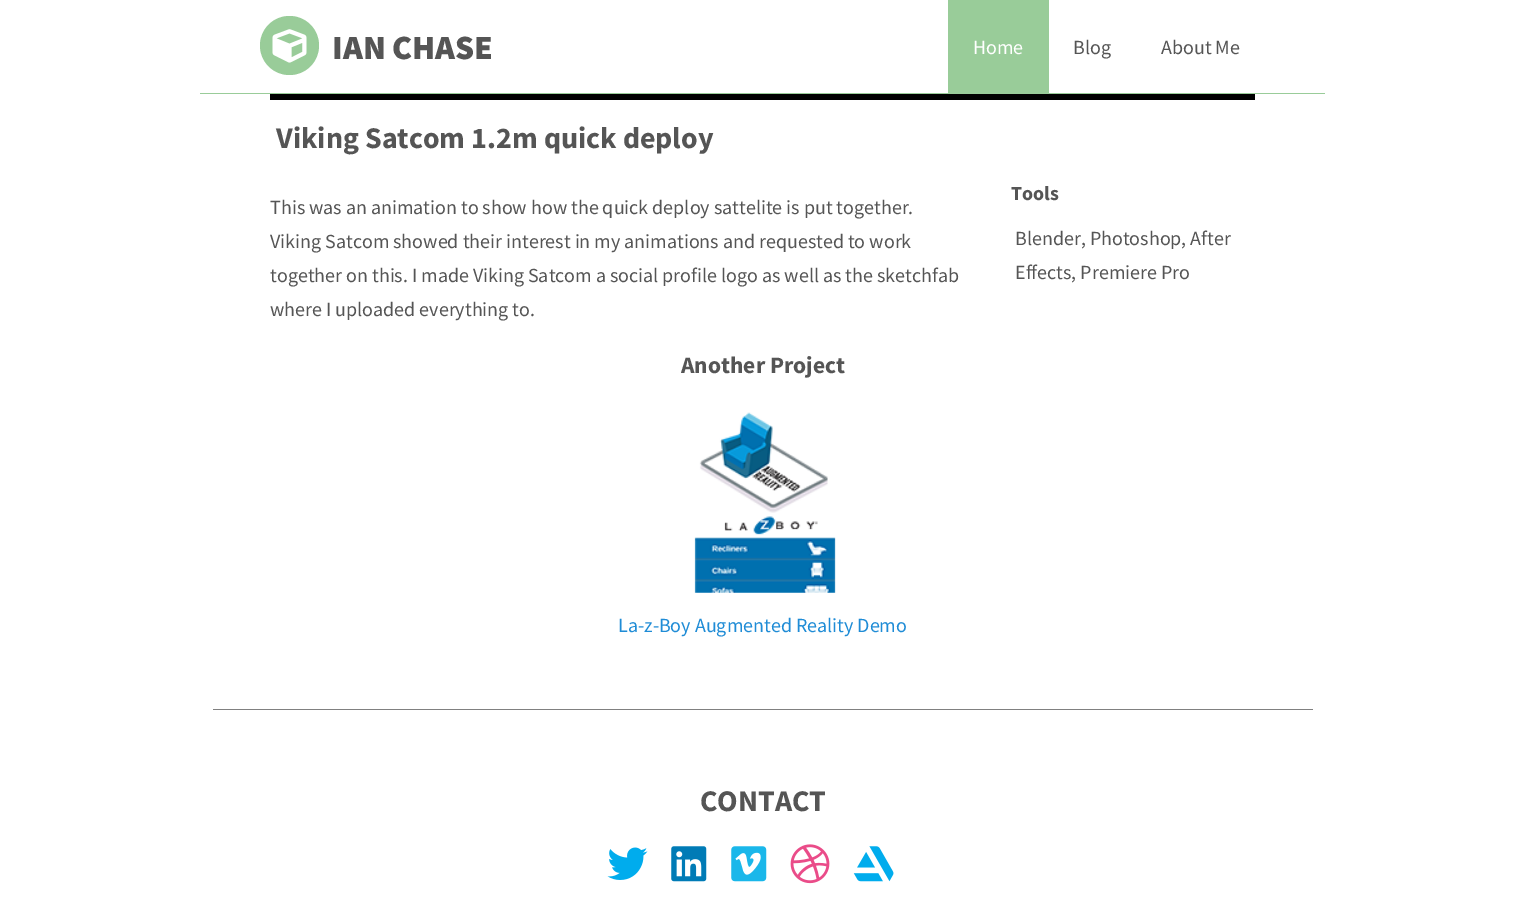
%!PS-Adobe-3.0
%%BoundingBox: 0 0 1524 900
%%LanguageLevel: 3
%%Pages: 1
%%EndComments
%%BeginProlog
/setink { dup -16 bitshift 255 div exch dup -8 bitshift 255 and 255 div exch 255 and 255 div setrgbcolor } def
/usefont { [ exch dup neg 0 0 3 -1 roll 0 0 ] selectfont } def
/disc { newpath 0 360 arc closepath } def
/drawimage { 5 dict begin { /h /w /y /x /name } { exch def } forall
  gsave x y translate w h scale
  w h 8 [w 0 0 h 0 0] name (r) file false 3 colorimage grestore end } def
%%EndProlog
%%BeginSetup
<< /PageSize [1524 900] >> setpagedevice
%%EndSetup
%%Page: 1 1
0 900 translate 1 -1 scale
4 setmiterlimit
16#FFFFFF setink
0 0 1524 900 rectfill
16#99CC99 setink
200 93 1125 1 rectfill
289.5 45.5 29.5 disc fill
(img1.raw) 272 29 35 34 drawimage
/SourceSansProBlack-Black 34 usefont
16#555555 setink
332 59 moveto (IAN CHASE) show
16#99CC99 setink
948 0 101 93 rectfill
/SourceSansPro-Regular 20 usefont
16#FFFFFF setink
973 54 moveto (Home) show
16#555555 setink
1073 54 moveto (Blog) show
1161 54 moveto (About Me) show
16#000000 setink
270 94 985 6 rectfill
/SourceSansPro-Bold 30 usefont
16#555555 setink
276 148 moveto (Viking Satcom 1.2m quick deploy) show
/SourceSansPro-Regular 20 usefont
[
    [(This was an animation to show how the quick deploy sattelite is put together.) 270 214]
    [(Viking Satcom showed their interest in my animations and requested to work) 270 248]
    [(together on this. I made Viking Satcom a social profile logo as well as the sketchfab) 270 282]
    [(where I uploaded everything to.) 270 316]
] { aload pop moveto show } forall
/SourceSansPro-Bold 20 usefont
1011 200 moveto (Tools) show
/SourceSansPro-Regular 20 usefont
1015 245 moveto (Blender, Photoshop, After) show
1015 279 moveto (Effects, Premiere Pro) show
/SourceSansPro-Bold 23.5 usefont
681 373 moveto (Another Project) show
(img2.raw) 694 412 142 181 drawimage
/SourceSansPro-Regular 20 usefont
16#1F8CD6 setink
618 632 moveto (La-z-Boy Augmented Reality Demo) show
16#808080 setink
213 709 1100 1 rectfill
/SourceSansPro-Bold 30 usefont
16#555555 setink
700 811 moveto (CONTACT) show
(img3.raw) 607 847 41 33 drawimage
(img4.raw) 671 846 36 36 drawimage
(img5.raw) 731 846 36 36 drawimage
(img6.raw) 790 844 40 40 drawimage
(img7.raw) 853 846 41 36 drawimage
showpage
%%EOF
